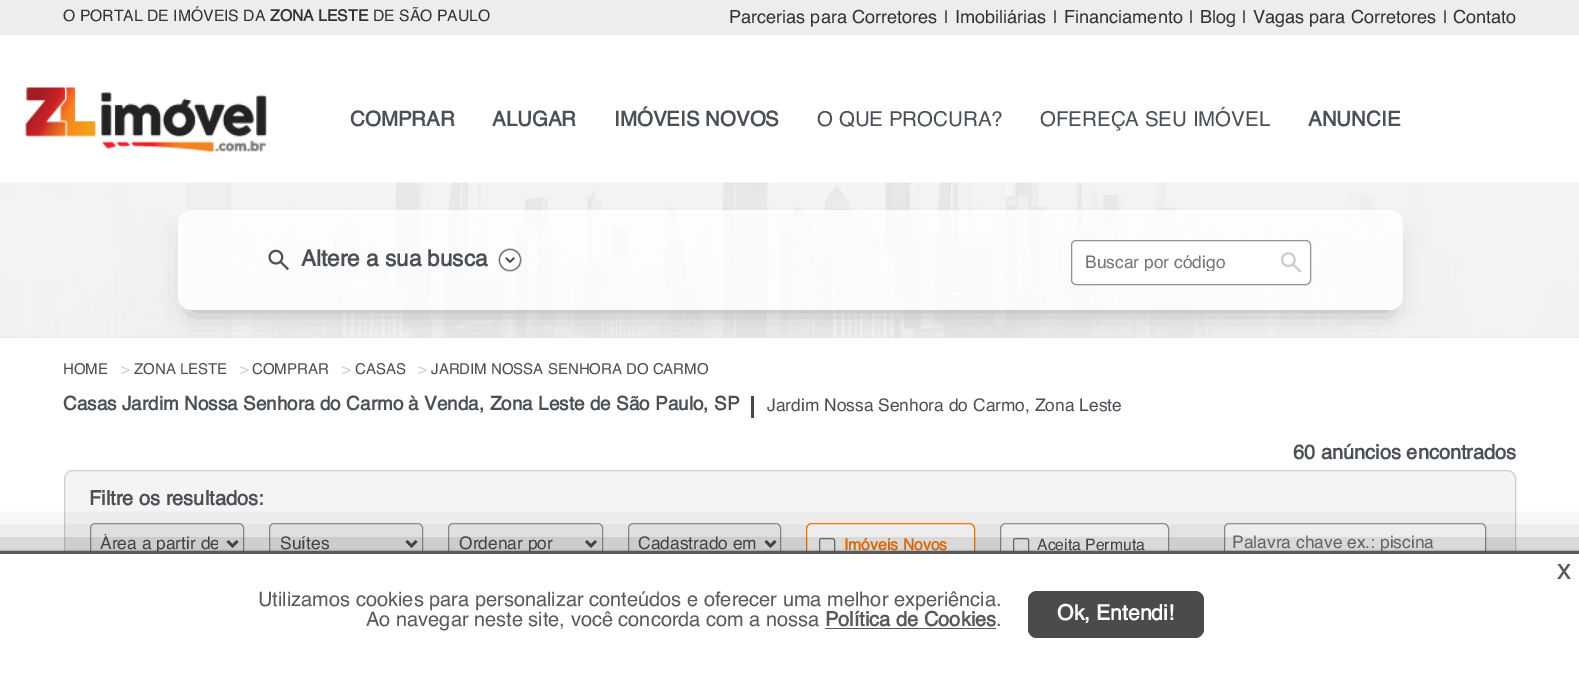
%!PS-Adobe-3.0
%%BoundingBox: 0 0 1579 675
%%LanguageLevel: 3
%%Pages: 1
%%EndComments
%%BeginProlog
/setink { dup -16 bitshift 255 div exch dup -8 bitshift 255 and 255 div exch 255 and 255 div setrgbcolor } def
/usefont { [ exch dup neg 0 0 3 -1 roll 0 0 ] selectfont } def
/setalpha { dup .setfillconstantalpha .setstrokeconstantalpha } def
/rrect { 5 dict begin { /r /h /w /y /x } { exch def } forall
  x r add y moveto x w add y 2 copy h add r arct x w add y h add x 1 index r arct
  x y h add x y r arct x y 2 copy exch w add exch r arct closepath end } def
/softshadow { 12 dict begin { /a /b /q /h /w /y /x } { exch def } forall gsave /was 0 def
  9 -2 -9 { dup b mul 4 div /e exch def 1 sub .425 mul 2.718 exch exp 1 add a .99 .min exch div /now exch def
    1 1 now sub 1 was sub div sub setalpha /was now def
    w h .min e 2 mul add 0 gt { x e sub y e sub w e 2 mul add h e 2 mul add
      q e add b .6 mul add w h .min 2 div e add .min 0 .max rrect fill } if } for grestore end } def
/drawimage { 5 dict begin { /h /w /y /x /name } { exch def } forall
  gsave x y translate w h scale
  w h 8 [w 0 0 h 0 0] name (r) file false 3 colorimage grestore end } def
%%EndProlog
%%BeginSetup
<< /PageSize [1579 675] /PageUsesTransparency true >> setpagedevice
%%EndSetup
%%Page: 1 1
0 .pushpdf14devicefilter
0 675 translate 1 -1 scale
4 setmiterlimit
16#FFFFFF setink
0 0 1579 675 rectfill
16#EDEDED setink
0 0 1579 35 rectfill
/Helvetica-Regular 15.75 usefont
16#333333 setink
63 21 moveto (O PORTAL DE IMÓVEIS DA) show
/Helvetica-Bold 15.75 usefont
270 21 moveto (ZONA LESTE) show
/Helvetica-Regular 15.75 usefont
373 21 moveto (DE SÃO PAULO) show
/Helvetica-Regular 18.1 usefont
729 23 moveto (Parcerias para Corretores) show
/Helvetica-Regular 17.4 usefont
944 23 moveto (|) show
/Helvetica-Regular 18.1 usefont
955 23 moveto (Imobiliárias) show
/Helvetica-Regular 17.4 usefont
1053 23 moveto (|) show
/Helvetica-Regular 18.1 usefont
1064 23 moveto (Financiamento) show
/Helvetica-Regular 17.4 usefont
1189 23 moveto (|) show
/Helvetica-Regular 18.1 usefont
1200 23 moveto (Blog) show
/Helvetica-Regular 17.4 usefont
1242 23 moveto (|) show
/Helvetica-Regular 18.1 usefont
1253 23 moveto (Vagas para Corretores) show
/Helvetica-Regular 17.4 usefont
1443 23 moveto (|) show
/Helvetica-Regular 18.1 usefont
1453 23 moveto (Contato) show
(img1.raw) 25 87 242 66 drawimage
/Helvetica-Bold 20.5 usefont
16#4B5056 setink
[
    [(COMPRAR) 350 126]
    [(ALUGAR) 492 126]
    [(IMÓVEIS NOVOS) 614 126]
] { aload pop moveto show } forall
/Helvetica-Regular 20.5 usefont
817 126 moveto (O QUE PROCURA?) show
1040 126 moveto (OFEREÇA SEU IMÓVEL) show
/Helvetica-Bold 20.5 usefont
1308 126 moveto (ANUNCIE) show
16#E5E5E5 setink
0 337 1579 1 rectfill
(img2.raw) 0 182 1579 156 drawimage
gsave
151 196 moveto 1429 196 lineto 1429 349 lineto 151 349 lineto closepath 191 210 moveto 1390 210 lineto 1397 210 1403 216 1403 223 curveto 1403 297 lineto 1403 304 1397 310 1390 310 curveto 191 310 lineto 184 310 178 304 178 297 curveto 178 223 lineto 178 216 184 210 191 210 curveto closepath eoclip newpath
16#AAAAAA setink
190 235 1200 75 0 12.5 1 softshadow
grestore
0.8 setalpha
16#FFFFFF setink
178 210 1225 100 13 rrect fill
1 setalpha
(img3.raw) 268 249 21 22 drawimage
/Helvetica-Bold 22.5 usefont
16#4B5056 setink
301 266 moveto (Altere a sua busca) show
(img4.raw) 498 248 24 24 drawimage
16#FFFFFF setink
1071.5 240.5 239 44 4.5 rrect gsave fill grestore
16#929292 setink
stroke
gsave
1085 254 194 17 rectclip
/Helvetica-Regular 17.4 usefont
16#757575 setink
1085 268 moveto (Buscar por código) show
grestore
(img5.raw) 1281 252 21 21 drawimage
/Helvetica-Regular 15 usefont
16#4B5056 setink
63 374 moveto (HOME) show
16#CCCCCC setink
121 374 moveto (>) show
16#4B5056 setink
134 374 moveto (ZONA LESTE) show
16#CCCCCC setink
240 374 moveto (>) show
16#4B5056 setink
252 374 moveto (COMPRAR) show
16#CCCCCC setink
342 374 moveto (>) show
16#4B5056 setink
355 374 moveto (CASAS) show
16#CCCCCC setink
418 374 moveto (>) show
16#4B5056 setink
431 374 moveto (JARDIM NOSSA SENHORA DO CARMO) show
/Helvetica-Bold 18.95 usefont
63 410 moveto (Casas Jardim Nossa Senhora do Carmo à Venda, Zona Leste de São Paulo, SP) show
16#484848 setink
751 396 3 22 rectfill
/Helvetica-Regular 17.4 usefont
16#4B5056 setink
767 411 moveto (Jardim Nossa Senhora do Carmo, Zona Leste) show
/Helvetica-Bold 20 usefont
1293 459 moveto (60 anúncios encontrados) show
16#F4F4F4 setink
64.5 470.5 1451 140 8.5 rrect gsave fill grestore
16#CCCCCC setink
stroke
16#4B5056 setink
89 505 moveto (Filtre os resultados:) show
16#EFEFEF setink
90.5 523.5 153 41 4.5 rrect gsave fill grestore
16#929292 setink
stroke
16#4B5056 setink
2.5 setlinewidth
227.5 541 moveto 232.5 546 lineto 237.5 541 lineto stroke
gsave
100 534 118 20 rectclip
/Helvetica-Regular 17.4 usefont
100 549 moveto (Área a partir de) show
grestore
16#EFEFEF setink
269.5 523.5 153 41 4.5 rrect gsave fill grestore
16#929292 setink
1 setlinewidth
stroke
16#4B5056 setink
2.5 setlinewidth
406.5 541 moveto 411.5 546 lineto 416.5 541 lineto stroke
/Helvetica-Regular 17.4 usefont
280 549 moveto (Suítes) show
16#EFEFEF setink
448.5 523.5 154 41 4.5 rrect gsave fill grestore
16#929292 setink
1 setlinewidth
stroke
16#4B5056 setink
2.5 setlinewidth
586 541 moveto 591 546 lineto 596 541 lineto stroke
459 549 moveto (Ordenar por) show
16#EFEFEF setink
628.5 523.5 152 41 4.5 rrect gsave fill grestore
16#929292 setink
1 setlinewidth
stroke
16#4B5056 setink
2.5 setlinewidth
765.5 541 moveto 770.5 546 lineto 775.5 541 lineto stroke
638 549 moveto (Cadastrado em) show
16#FFFFFF setink
806.5 523.5 168 47 5.5 rrect gsave fill grestore
16#FF7900 setink
1 setlinewidth
stroke
16#767676 setink
819.5 538.5 15 15 2 rrect stroke
/Helvetica-Bold 15.75 usefont
16#FF7900 setink
844 550 moveto (Imóveis Novos) show
16#FFFFFF setink
1000.5 523.5 168 47 5.5 rrect gsave fill grestore
16#929292 setink
stroke
16#767676 setink
1013.5 538.5 15 15 2 rrect stroke
/Helvetica-Regular 15.75 usefont
16#4B5056 setink
1037 550 moveto (Aceita Permuta) show
16#FFFFFF setink
1224.5 523.5 261 39 4.5 rrect gsave fill grestore
16#929292 setink
stroke
/Helvetica-Regular 17.4 usefont
16#757575 setink
1232 548 moveto (Palavra chave ex.: piscina) show
16#000000 setink
-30 569 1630 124 0 25.5 1 softshadow
16#FFFFFF setink
0 554 1579 121 rectfill
16#595959 setink
0 551 1579 3 rectfill
/Helvetica-Bold 20 usefont
1557 579 moveto (X) show
/Helvetica-Regular 20 usefont
258 606 moveto (Utilizamos cookies para personalizar conteúdos e oferecer uma melhor experiência.) show
366 626 moveto (Ao navegar neste site, você concorda com a nossa) show
/Helvetica-Bold 20 usefont
825 626 moveto (Política de Cookies) show
825 628 171 1 rectfill
/Helvetica-Regular 20 usefont
996 626 moveto (.) show
16#4B4B4B setink
1028 591 176 47 9 rrect fill
/Helvetica-Bold 21.25 usefont
16#FFFFFF setink
1057 620 moveto (Ok, Entendi!) show
.poppdf14devicefilter showpage
%%EOF
